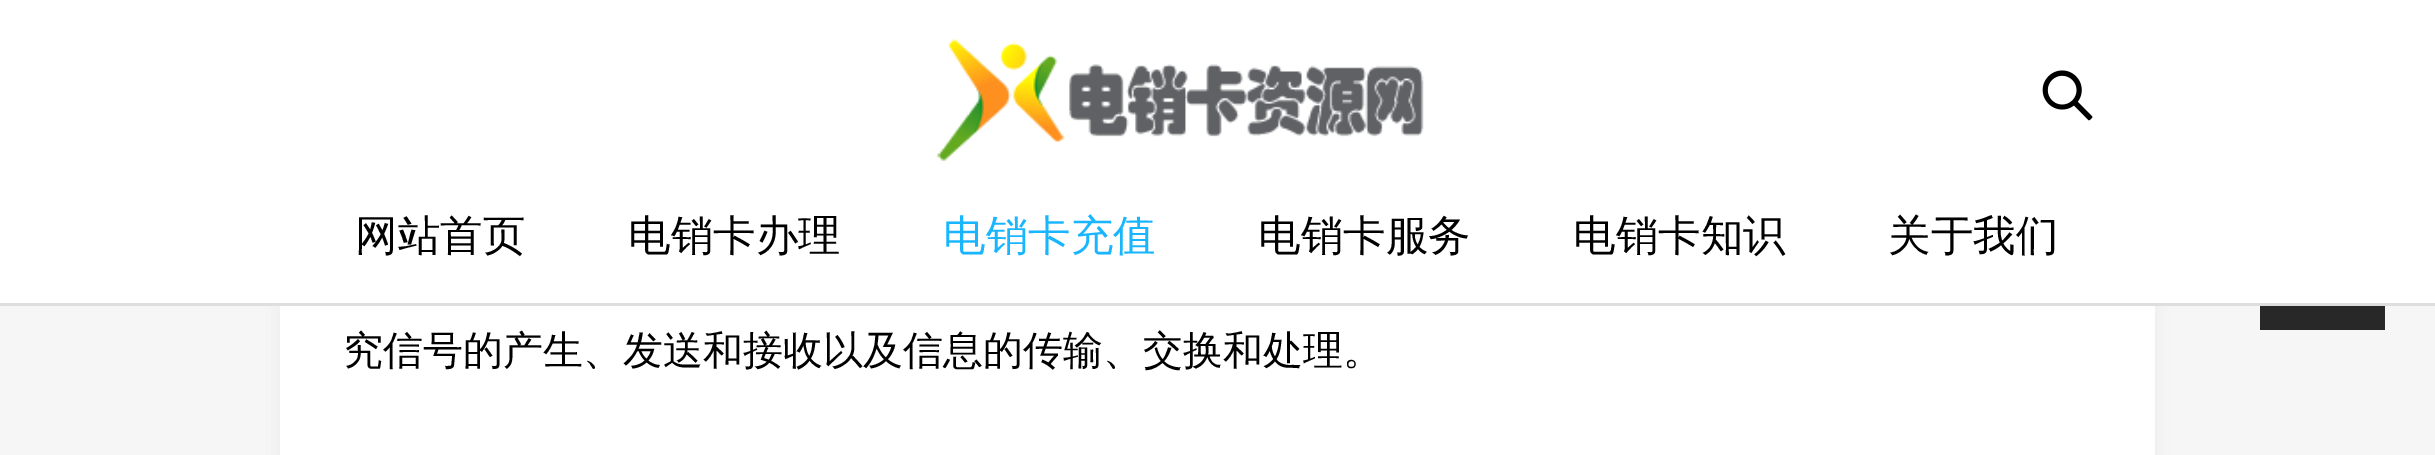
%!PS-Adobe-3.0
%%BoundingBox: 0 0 2435 455
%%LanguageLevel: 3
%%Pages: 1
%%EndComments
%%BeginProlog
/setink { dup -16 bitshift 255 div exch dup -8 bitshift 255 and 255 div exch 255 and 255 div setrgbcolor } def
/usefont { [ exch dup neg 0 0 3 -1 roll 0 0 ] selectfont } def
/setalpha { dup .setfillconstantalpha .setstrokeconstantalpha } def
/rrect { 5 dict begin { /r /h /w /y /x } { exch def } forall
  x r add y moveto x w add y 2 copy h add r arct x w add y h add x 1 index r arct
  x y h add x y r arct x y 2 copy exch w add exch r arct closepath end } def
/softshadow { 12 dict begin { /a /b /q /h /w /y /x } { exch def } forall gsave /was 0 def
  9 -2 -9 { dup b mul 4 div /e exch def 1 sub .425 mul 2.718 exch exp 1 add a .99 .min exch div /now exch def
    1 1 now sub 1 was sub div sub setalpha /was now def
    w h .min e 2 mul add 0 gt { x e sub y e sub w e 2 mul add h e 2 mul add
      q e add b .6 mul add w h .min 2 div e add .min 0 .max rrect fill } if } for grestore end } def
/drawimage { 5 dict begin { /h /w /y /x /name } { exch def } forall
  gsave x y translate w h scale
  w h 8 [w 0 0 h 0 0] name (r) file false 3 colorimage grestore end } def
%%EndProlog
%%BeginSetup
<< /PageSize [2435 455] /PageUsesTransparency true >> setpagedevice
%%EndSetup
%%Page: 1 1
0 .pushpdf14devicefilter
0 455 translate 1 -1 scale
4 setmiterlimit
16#F6F6F6 setink
0 0 2435 455 rectfill
16#929292 setink
280 -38 1875 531 0 12.5 0.1 softshadow
16#FFFFFF setink
0 0 2435 303 rectfill
16#DEDEDE setink
0 303 2435 3 rectfill
(img1.raw) 936 39 488 123 drawimage
(img2.raw) 2042 70 51 51 drawimage
/WenQuanYiZenHei-Medium 42.5 usefont
16#000000 setink
355 250 moveto (网站首页) show
628 250 moveto (电销卡办理) show
16#19B5FE setink
943 250 moveto (电销卡充值) show
16#000000 setink
[
    [(电销卡服务) 1258 250]
    [(电销卡知识) 1573 250]
    [(关于我们) 1888 250]
] { aload pop moveto show } forall
16#282828 setink
2260 306 125 24 rectfill
16#FFFFFF setink
280 306 1875 149 rectfill
/WenQuanYiZenHei-Medium 40 usefont
16#000000 setink
343 364 moveto (究信号的产生、发送和接收以及信息的传输、交换和处理。) show
.poppdf14devicefilter showpage
%%EOF
